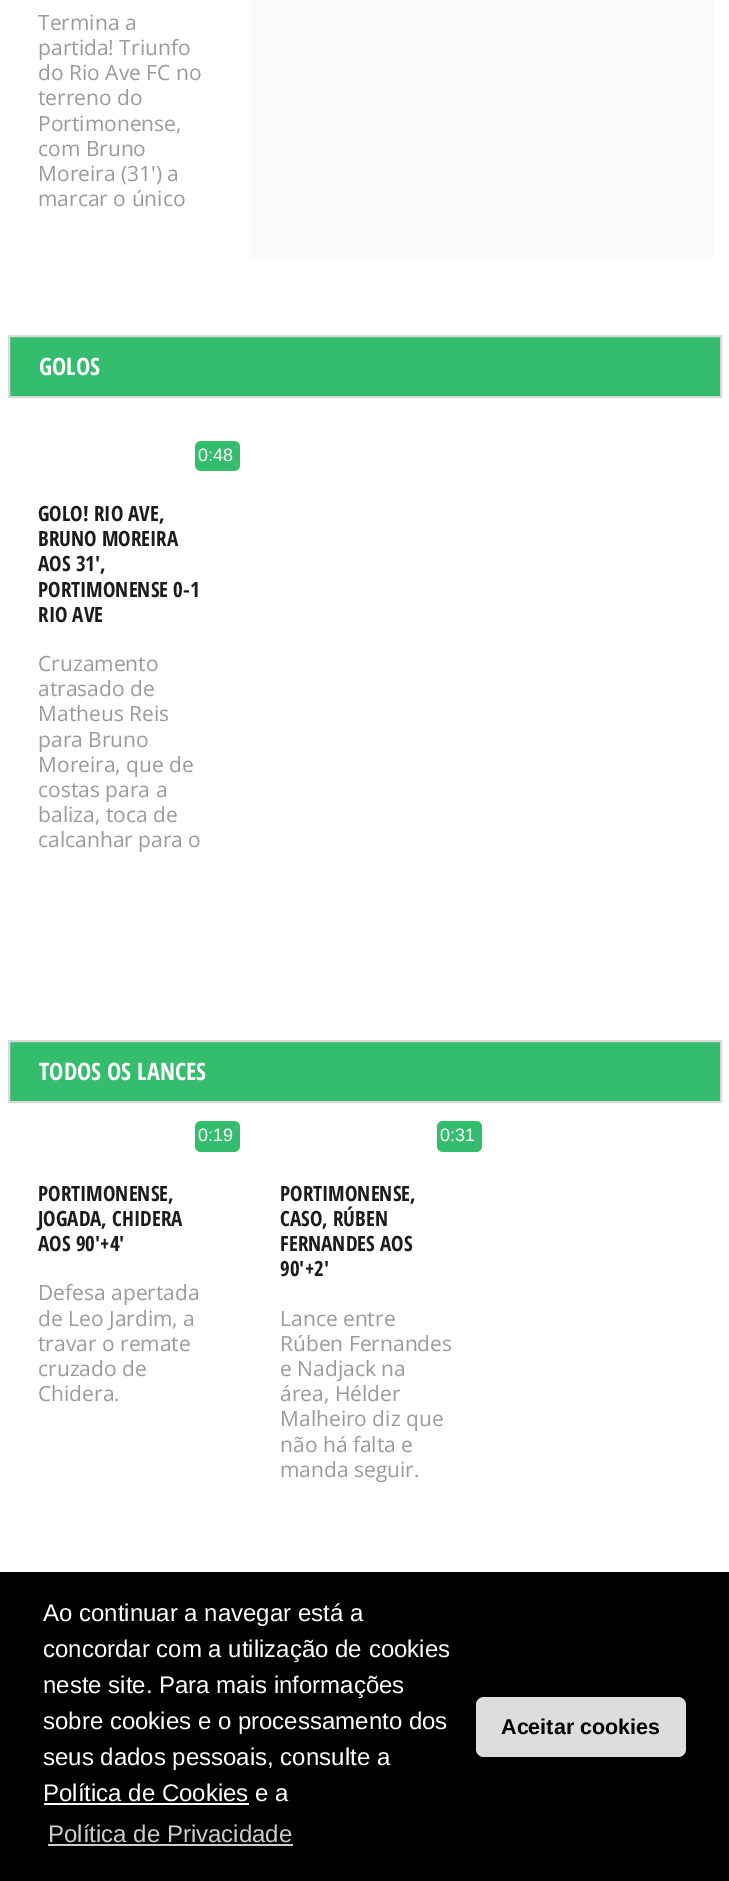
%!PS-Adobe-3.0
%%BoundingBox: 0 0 729 1881
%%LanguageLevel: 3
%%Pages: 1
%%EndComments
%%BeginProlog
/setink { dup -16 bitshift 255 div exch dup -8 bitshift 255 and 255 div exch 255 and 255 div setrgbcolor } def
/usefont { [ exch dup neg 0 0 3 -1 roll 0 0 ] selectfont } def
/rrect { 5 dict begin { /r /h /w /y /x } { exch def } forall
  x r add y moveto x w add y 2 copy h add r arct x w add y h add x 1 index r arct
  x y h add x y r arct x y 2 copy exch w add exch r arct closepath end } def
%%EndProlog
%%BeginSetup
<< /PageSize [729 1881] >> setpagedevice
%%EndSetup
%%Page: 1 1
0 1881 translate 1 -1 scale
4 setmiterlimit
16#FFFFFF setink
0 0 729 1881 rectfill
/OpenSans-Regular 21 usefont
16#9B9B9B setink
[
    [(Termina a) 38 30]
    [(partida! Triunfo) 38 55]
    [(do Rio Ave FC no) 38 80]
    [(terreno do) 38 105]
    [(Portimonense,) 38 131]
    [(com Bruno) 38 156]
    [(Moreira \(31'\) a) 38 181]
    [(marcar o único) 38 206]
] { aload pop moveto show } forall
16#FAFAFA setink
249 0 465 260 rectfill
16#33BD6C setink
9 336 moveto 721 336 lineto 721 397 lineto 9 397 lineto closepath gsave fill grestore
16#DADADA setink
2 setlinewidth
stroke
/OpenSansCondensed-Bold 24 usefont
16#FFFFFF setink
39 375 moveto (GOLOS) show
16#33BD6C setink
195 441 45 30 6 rrect fill
/LiberationSans-Regular 18 usefont
16#FFFFFF setink
198 461 moveto (0:48) show
/OpenSansCondensed-Bold 21 usefont
16#1C1C1C setink
[
    [(GOLO! RIO AVE,) 38 521]
    [(BRUNO MOREIRA) 38 546]
    [(AOS 31',) 38 571]
    [(PORTIMONENSE 0-1) 38 597]
    [(RIO AVE) 38 622]
] { aload pop moveto show } forall
/OpenSans-Regular 21 usefont
16#9B9B9B setink
[
    [(Cruzamento) 38 671]
    [(atrasado de) 38 696]
    [(Matheus Reis) 38 721]
    [(para Bruno) 38 747]
    [(Moreira, que de) 38 772]
    [(costas para a) 38 797]
    [(baliza, toca de) 38 822]
    [(calcanhar para o) 38 847]
] { aload pop moveto show } forall
16#33BD6C setink
9 1041 moveto 721 1041 lineto 721 1102 lineto 9 1102 lineto closepath gsave fill grestore
16#DADADA setink
stroke
/OpenSansCondensed-Bold 24 usefont
16#FFFFFF setink
39 1080 moveto (TODOS OS LANCES) show
16#33BD6C setink
195 1121 45 31 6 rrect fill
/LiberationSans-Regular 18 usefont
16#FFFFFF setink
198 1141 moveto (0:19) show
/OpenSansCondensed-Bold 21 usefont
16#1C1C1C setink
[
    [(PORTIMONENSE,) 38 1201]
    [(JOGADA, CHIDERA) 38 1226]
    [(AOS 90'+4') 38 1251]
] { aload pop moveto show } forall
/OpenSans-Regular 21 usefont
16#9B9B9B setink
[
    [(Defesa apertada) 38 1300]
    [(de Leo Jardim, a) 38 1326]
    [(travar o remate) 38 1351]
    [(cruzado de) 38 1376]
    [(Chidera.) 38 1401]
] { aload pop moveto show } forall
16#33BD6C setink
437 1121 45 31 6 rrect fill
/LiberationSans-Regular 18 usefont
16#FFFFFF setink
440 1141 moveto (0:31) show
/OpenSansCondensed-Bold 21 usefont
16#1C1C1C setink
[
    [(PORTIMONENSE,) 280 1201]
    [(CASO, RÚBEN) 280 1226]
    [(FERNANDES AOS) 280 1251]
    [(90'+2') 280 1276]
] { aload pop moveto show } forall
/OpenSans-Regular 21 usefont
16#9B9B9B setink
[
    [(Lance entre) 280 1326]
    [(Rúben Fernandes) 280 1351]
    [(e Nadjack na) 280 1376]
    [(área, Hélder) 280 1401]
    [(Malheiro diz que) 280 1426]
    [(não há falta e) 280 1452]
    [(manda seguir.) 280 1477]
] { aload pop moveto show } forall
16#000000 setink
0 1572 729 309 rectfill
/LiberationSans-Regular 24 usefont
16#FFFFFF setink
[
    [(Ao continuar a navegar está a) 43 1621]
    [(concordar com a utilização de cookies) 43 1657]
    [(neste site. Para mais informações) 43 1693]
    [(sobre cookies e o processamento dos) 43 1729]
    [(seus dados pessoais, consulte a) 43 1765]
    [(Política de Cookies e a) 43 1801]
] { aload pop moveto show } forall
44 1803 205 2 rectfill
16#CCCCCC setink
48 1842 moveto (Política de Privacidade) show
48 1844 245 2 rectfill
16#DDDDDD setink
476 1697 210 60 8 rrect fill
/LiberationSans-Bold 21.5 usefont
16#000000 setink
501 1734 moveto (Aceitar cookies) show
showpage
%%EOF
